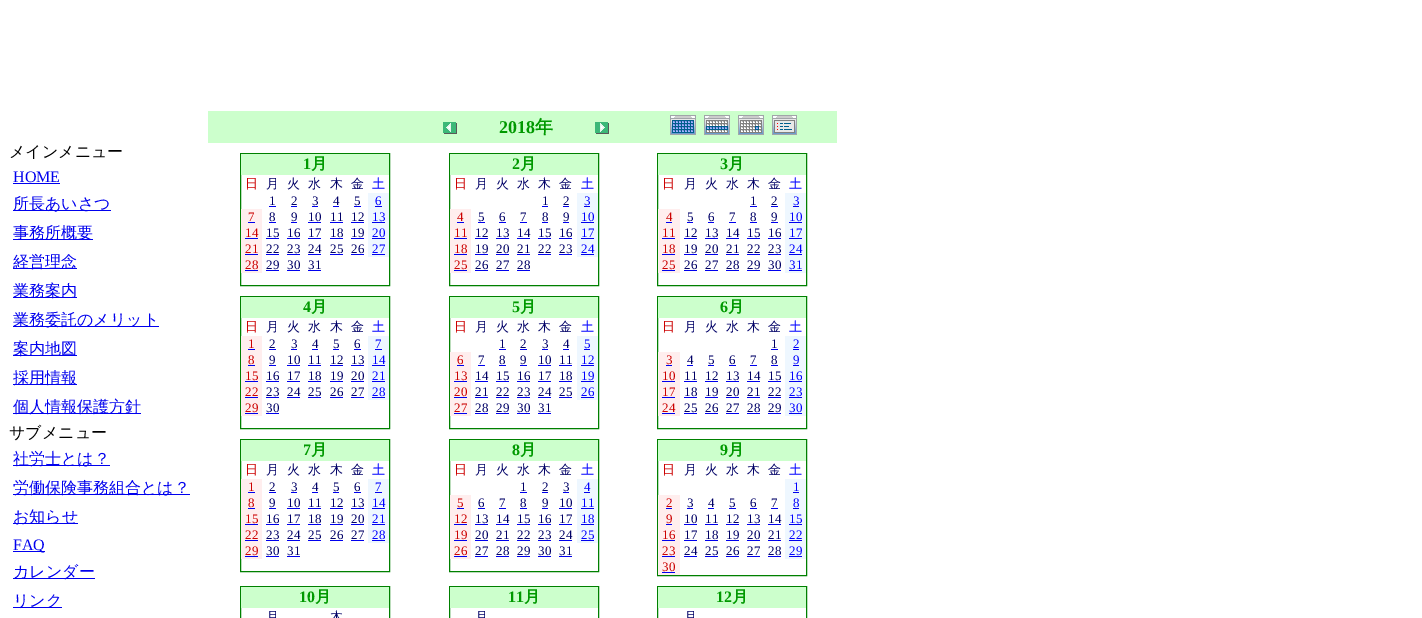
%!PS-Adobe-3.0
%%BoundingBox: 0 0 1422 618
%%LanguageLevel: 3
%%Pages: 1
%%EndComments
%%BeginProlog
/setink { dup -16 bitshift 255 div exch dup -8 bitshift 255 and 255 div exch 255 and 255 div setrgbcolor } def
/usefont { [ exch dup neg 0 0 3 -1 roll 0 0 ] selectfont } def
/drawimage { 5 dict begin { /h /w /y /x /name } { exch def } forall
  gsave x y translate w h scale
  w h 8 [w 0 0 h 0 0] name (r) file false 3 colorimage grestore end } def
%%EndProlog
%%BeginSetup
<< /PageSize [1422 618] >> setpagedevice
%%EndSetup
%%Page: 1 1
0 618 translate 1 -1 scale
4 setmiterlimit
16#FFFFFF setink
0 0 1422 618 rectfill
/WenQuanYiZenHei-Medium 16 usefont
16#000000 setink
9 157 moveto (メインメニュー) show
/LiberationSerif-Regular 16 usefont
16#0000EE setink
13 182 moveto (HOME) show
13 183 47 1 rectfill
13 210 98 1 rectfill
/WenQuanYiZenHei-Medium 16 usefont
13 209 moveto (所長あいさつ) show
13 239 80 1 rectfill
13 238 moveto (事務所概要) show
13 268 64 1 rectfill
13 267 moveto (経営理念) show
13 297 64 1 rectfill
13 296 moveto (業務案内) show
13 326 146 1 rectfill
13 325 moveto (業務委託のメリット) show
13 355 64 1 rectfill
13 354 moveto (案内地図) show
13 384 64 1 rectfill
13 383 moveto (採用情報) show
13 413 128 1 rectfill
13 412 moveto (個人情報保護方針) show
16#000000 setink
9 438 moveto (サブメニュー) show
16#0000EE setink
13 465 97 1 rectfill
13 464 moveto (社労士とは？) show
13 494 177 1 rectfill
13 493 moveto (労働保険事務組合とは？) show
13 523 65 1 rectfill
13 522 moveto (お知らせ) show
13 551 32 1 rectfill
/LiberationSerif-Regular 16 usefont
13 550 moveto (FAQ) show
13 578 82 1 rectfill
/WenQuanYiZenHei-Medium 16 usefont
13 577 moveto (カレンダー) show
13 607 49 1 rectfill
13 606 moveto (リンク) show
16#CCFFCC setink
208 111 629 32 rectfill
(img1.raw) 443 122 14 12 drawimage
/LiberationSerif-Bold 18 usefont
16#009900 setink
499 133 moveto (2018) show
/WenQuanYiZenHei-Bold 18 usefont
535 133 moveto (年) show
(img2.raw) 595 122 14 12 drawimage
(img3.raw) 670 115 26 20 drawimage
(img4.raw) 704 115 26 20 drawimage
(img5.raw) 738 115 26 20 drawimage
(img6.raw) 772 115 25 20 drawimage
16#008000 setink
240.5 153.5 149 132 rectstroke
16#CCFFCC setink
241 154 148 21 rectfill
/LiberationSerif-Bold 16 usefont
16#009900 setink
303 169 moveto (1) show
/WenQuanYiZenHei-Bold 16 usefont
311 169 moveto (月) show
/WenQuanYiZenHei-Medium 13 usefont
16#CC0000 setink
245 188 moveto (日) show
16#000066 setink
[
    [(月) 266 188]
    [(火) 287 188]
    [(水) 308 188]
    [(木) 330 188]
    [(金) 351 188]
] { aload pop moveto show } forall
16#0000FF setink
372 188 moveto (土) show
/LiberationSerif-Regular 13 usefont
16#000066 setink
269 205 moveto (1) show
16#0000EE setink
269 206 7 1 rectfill
16#000066 setink
291 205 moveto (2) show
16#0000EE setink
291 206 6 1 rectfill
16#000066 setink
312 205 moveto (3) show
16#0000EE setink
312 206 6 1 rectfill
16#000066 setink
333 205 moveto (4) show
16#0000EE setink
333 206 6 1 rectfill
16#000066 setink
354 205 moveto (5) show
16#0000EE setink
354 206 7 1 rectfill
16#EEF7FF setink
368 193 21 64 rectfill
16#0000FF setink
375 205 moveto (6) show
16#0000EE setink
375 206 7 1 rectfill
16#FFEEEE setink
241 209 21 64 rectfill
16#CC0000 setink
248 221 moveto (7) show
16#0000EE setink
248 222 7 1 rectfill
16#000066 setink
269 221 moveto (8) show
16#0000EE setink
269 222 7 1 rectfill
16#000066 setink
291 221 moveto (9) show
16#0000EE setink
291 222 6 1 rectfill
16#000066 setink
308 221 moveto (10) show
16#0000EE setink
308 222 13 1 rectfill
16#000066 setink
330 221 moveto (11) show
16#0000EE setink
330 222 13 1 rectfill
16#000066 setink
351 221 moveto (12) show
16#0000EE setink
351 222 13 1 rectfill
16#0000FF setink
372 221 moveto (13) show
16#0000EE setink
372 222 13 1 rectfill
16#CC0000 setink
245 237 moveto (14) show
16#0000EE setink
245 238 13 1 rectfill
16#000066 setink
266 237 moveto (15) show
16#0000EE setink
266 238 13 1 rectfill
16#000066 setink
287 237 moveto (16) show
16#0000EE setink
287 238 13 1 rectfill
16#000066 setink
308 237 moveto (17) show
16#0000EE setink
308 238 13 1 rectfill
16#000066 setink
330 237 moveto (18) show
16#0000EE setink
330 238 13 1 rectfill
16#000066 setink
351 237 moveto (19) show
16#0000EE setink
351 238 13 1 rectfill
16#0000FF setink
372 237 moveto (20) show
16#0000EE setink
372 238 13 1 rectfill
16#CC0000 setink
245 253 moveto (21) show
16#0000EE setink
245 254 13 1 rectfill
16#000066 setink
266 253 moveto (22) show
16#0000EE setink
266 254 13 1 rectfill
16#000066 setink
287 253 moveto (23) show
16#0000EE setink
287 254 13 1 rectfill
16#000066 setink
308 253 moveto (24) show
16#0000EE setink
308 254 13 1 rectfill
16#000066 setink
330 253 moveto (25) show
16#0000EE setink
330 254 13 1 rectfill
16#000066 setink
351 253 moveto (26) show
16#0000EE setink
351 254 13 1 rectfill
16#0000FF setink
372 253 moveto (27) show
16#0000EE setink
372 254 13 1 rectfill
16#CC0000 setink
245 269 moveto (28) show
16#0000EE setink
245 270 13 1 rectfill
16#000066 setink
266 269 moveto (29) show
16#0000EE setink
266 270 13 1 rectfill
16#000066 setink
287 269 moveto (30) show
16#0000EE setink
287 270 13 1 rectfill
16#000066 setink
308 269 moveto (31) show
16#0000EE setink
308 270 13 1 rectfill
16#008000 setink
449.5 153.5 149 132 rectstroke
16#CCFFCC setink
450 154 148 21 rectfill
/LiberationSerif-Bold 16 usefont
16#009900 setink
512 169 moveto (2) show
/WenQuanYiZenHei-Bold 16 usefont
520 169 moveto (月) show
/WenQuanYiZenHei-Medium 13 usefont
16#CC0000 setink
454 188 moveto (日) show
16#000066 setink
[
    [(月) 475 188]
    [(火) 496 188]
    [(水) 517 188]
    [(木) 538 188]
    [(金) 559 188]
] { aload pop moveto show } forall
16#0000FF setink
581 188 moveto (土) show
/LiberationSerif-Regular 13 usefont
16#000066 setink
542 205 moveto (1) show
16#0000EE setink
542 206 6 1 rectfill
16#000066 setink
563 205 moveto (2) show
16#0000EE setink
563 206 6 1 rectfill
16#EEF7FF setink
577 193 21 64 rectfill
16#0000FF setink
584 205 moveto (3) show
16#0000EE setink
584 206 6 1 rectfill
16#FFEEEE setink
450 209 21 64 rectfill
16#CC0000 setink
457 221 moveto (4) show
16#0000EE setink
457 222 7 1 rectfill
16#000066 setink
478 221 moveto (5) show
16#0000EE setink
478 222 7 1 rectfill
16#000066 setink
499 221 moveto (6) show
16#0000EE setink
499 222 7 1 rectfill
16#000066 setink
520 221 moveto (7) show
16#0000EE setink
520 222 7 1 rectfill
16#000066 setink
542 221 moveto (8) show
16#0000EE setink
542 222 6 1 rectfill
16#000066 setink
563 221 moveto (9) show
16#0000EE setink
563 222 6 1 rectfill
16#0000FF setink
581 221 moveto (10) show
16#0000EE setink
581 222 13 1 rectfill
16#CC0000 setink
454 237 moveto (11) show
16#0000EE setink
454 238 13 1 rectfill
16#000066 setink
475 237 moveto (12) show
16#0000EE setink
475 238 13 1 rectfill
16#000066 setink
496 237 moveto (13) show
16#0000EE setink
496 238 13 1 rectfill
16#000066 setink
517 237 moveto (14) show
16#0000EE setink
517 238 13 1 rectfill
16#000066 setink
538 237 moveto (15) show
16#0000EE setink
538 238 13 1 rectfill
16#000066 setink
559 237 moveto (16) show
16#0000EE setink
559 238 13 1 rectfill
16#0000FF setink
581 237 moveto (17) show
16#0000EE setink
581 238 13 1 rectfill
16#CC0000 setink
454 253 moveto (18) show
16#0000EE setink
454 254 13 1 rectfill
16#000066 setink
475 253 moveto (19) show
16#0000EE setink
475 254 13 1 rectfill
16#000066 setink
496 253 moveto (20) show
16#0000EE setink
496 254 13 1 rectfill
16#000066 setink
517 253 moveto (21) show
16#0000EE setink
517 254 13 1 rectfill
16#000066 setink
538 253 moveto (22) show
16#0000EE setink
538 254 13 1 rectfill
16#000066 setink
559 253 moveto (23) show
16#0000EE setink
559 254 13 1 rectfill
16#0000FF setink
581 253 moveto (24) show
16#0000EE setink
581 254 13 1 rectfill
16#CC0000 setink
454 269 moveto (25) show
16#0000EE setink
454 270 13 1 rectfill
16#000066 setink
475 269 moveto (26) show
16#0000EE setink
475 270 13 1 rectfill
16#000066 setink
496 269 moveto (27) show
16#0000EE setink
496 270 13 1 rectfill
16#000066 setink
517 269 moveto (28) show
16#0000EE setink
517 270 13 1 rectfill
16#008000 setink
657.5 153.5 149 132 rectstroke
16#CCFFCC setink
658 154 148 21 rectfill
/LiberationSerif-Bold 16 usefont
16#009900 setink
720 169 moveto (3) show
/WenQuanYiZenHei-Bold 16 usefont
728 169 moveto (月) show
/WenQuanYiZenHei-Medium 13 usefont
16#CC0000 setink
662 188 moveto (日) show
16#000066 setink
[
    [(月) 684 188]
    [(火) 705 188]
    [(水) 726 188]
    [(木) 747 188]
    [(金) 768 188]
] { aload pop moveto show } forall
16#0000FF setink
789 188 moveto (土) show
/LiberationSerif-Regular 13 usefont
16#000066 setink
750 205 moveto (1) show
16#0000EE setink
750 206 7 1 rectfill
16#000066 setink
771 205 moveto (2) show
16#0000EE setink
771 206 7 1 rectfill
16#EEF7FF setink
785 193 21 80 rectfill
16#0000FF setink
793 205 moveto (3) show
16#0000EE setink
793 206 6 1 rectfill
16#FFEEEE setink
658 209 22 64 rectfill
16#CC0000 setink
666 221 moveto (4) show
16#0000EE setink
666 222 6 1 rectfill
16#000066 setink
687 221 moveto (5) show
16#0000EE setink
687 222 6 1 rectfill
16#000066 setink
708 221 moveto (6) show
16#0000EE setink
708 222 6 1 rectfill
16#000066 setink
729 221 moveto (7) show
16#0000EE setink
729 222 7 1 rectfill
16#000066 setink
750 221 moveto (8) show
16#0000EE setink
750 222 7 1 rectfill
16#000066 setink
771 221 moveto (9) show
16#0000EE setink
771 222 7 1 rectfill
16#0000FF setink
789 221 moveto (10) show
16#0000EE setink
789 222 13 1 rectfill
16#CC0000 setink
662 237 moveto (11) show
16#0000EE setink
662 238 13 1 rectfill
16#000066 setink
684 237 moveto (12) show
16#0000EE setink
684 238 13 1 rectfill
16#000066 setink
705 237 moveto (13) show
16#0000EE setink
705 238 13 1 rectfill
16#000066 setink
726 237 moveto (14) show
16#0000EE setink
726 238 13 1 rectfill
16#000066 setink
747 237 moveto (15) show
16#0000EE setink
747 238 13 1 rectfill
16#000066 setink
768 237 moveto (16) show
16#0000EE setink
768 238 13 1 rectfill
16#0000FF setink
789 237 moveto (17) show
16#0000EE setink
789 238 13 1 rectfill
16#CC0000 setink
662 253 moveto (18) show
16#0000EE setink
662 254 13 1 rectfill
16#000066 setink
684 253 moveto (19) show
16#0000EE setink
684 254 13 1 rectfill
16#000066 setink
705 253 moveto (20) show
16#0000EE setink
705 254 13 1 rectfill
16#000066 setink
726 253 moveto (21) show
16#0000EE setink
726 254 13 1 rectfill
16#000066 setink
747 253 moveto (22) show
16#0000EE setink
747 254 13 1 rectfill
16#000066 setink
768 253 moveto (23) show
16#0000EE setink
768 254 13 1 rectfill
16#0000FF setink
789 253 moveto (24) show
16#0000EE setink
789 254 13 1 rectfill
16#CC0000 setink
662 269 moveto (25) show
16#0000EE setink
662 270 13 1 rectfill
16#000066 setink
684 269 moveto (26) show
16#0000EE setink
684 270 13 1 rectfill
16#000066 setink
705 269 moveto (27) show
16#0000EE setink
705 270 13 1 rectfill
16#000066 setink
726 269 moveto (28) show
16#0000EE setink
726 270 13 1 rectfill
16#000066 setink
747 269 moveto (29) show
16#0000EE setink
747 270 13 1 rectfill
16#000066 setink
768 269 moveto (30) show
16#0000EE setink
768 270 13 1 rectfill
16#0000FF setink
789 269 moveto (31) show
16#0000EE setink
789 270 13 1 rectfill
16#008000 setink
240.5 296.5 149 132 rectstroke
16#CCFFCC setink
241 297 148 21 rectfill
/LiberationSerif-Bold 16 usefont
16#009900 setink
303 312 moveto (4) show
/WenQuanYiZenHei-Bold 16 usefont
311 312 moveto (月) show
/WenQuanYiZenHei-Medium 13 usefont
16#CC0000 setink
245 331 moveto (日) show
16#000066 setink
[
    [(月) 266 331]
    [(火) 287 331]
    [(水) 308 331]
    [(木) 330 331]
    [(金) 351 331]
] { aload pop moveto show } forall
16#0000FF setink
372 331 moveto (土) show
16#FFEEEE setink
241 336 21 80 rectfill
/LiberationSerif-Regular 13 usefont
16#CC0000 setink
248 348 moveto (1) show
16#0000EE setink
248 349 7 1 rectfill
16#000066 setink
269 348 moveto (2) show
16#0000EE setink
269 349 7 1 rectfill
16#000066 setink
291 348 moveto (3) show
16#0000EE setink
291 349 6 1 rectfill
16#000066 setink
312 348 moveto (4) show
16#0000EE setink
312 349 6 1 rectfill
16#000066 setink
333 348 moveto (5) show
16#0000EE setink
333 349 6 1 rectfill
16#000066 setink
354 348 moveto (6) show
16#0000EE setink
354 349 7 1 rectfill
16#EEF7FF setink
368 336 21 64 rectfill
16#0000FF setink
375 348 moveto (7) show
16#0000EE setink
375 349 7 1 rectfill
16#CC0000 setink
248 364 moveto (8) show
16#0000EE setink
248 365 7 1 rectfill
16#000066 setink
269 364 moveto (9) show
16#0000EE setink
269 365 7 1 rectfill
16#000066 setink
287 364 moveto (10) show
16#0000EE setink
287 365 13 1 rectfill
16#000066 setink
308 364 moveto (11) show
16#0000EE setink
308 365 13 1 rectfill
16#000066 setink
330 364 moveto (12) show
16#0000EE setink
330 365 13 1 rectfill
16#000066 setink
351 364 moveto (13) show
16#0000EE setink
351 365 13 1 rectfill
16#0000FF setink
372 364 moveto (14) show
16#0000EE setink
372 365 13 1 rectfill
16#CC0000 setink
245 380 moveto (15) show
16#0000EE setink
245 381 13 1 rectfill
16#000066 setink
266 380 moveto (16) show
16#0000EE setink
266 381 13 1 rectfill
16#000066 setink
287 380 moveto (17) show
16#0000EE setink
287 381 13 1 rectfill
16#000066 setink
308 380 moveto (18) show
16#0000EE setink
308 381 13 1 rectfill
16#000066 setink
330 380 moveto (19) show
16#0000EE setink
330 381 13 1 rectfill
16#000066 setink
351 380 moveto (20) show
16#0000EE setink
351 381 13 1 rectfill
16#0000FF setink
372 380 moveto (21) show
16#0000EE setink
372 381 13 1 rectfill
16#CC0000 setink
245 396 moveto (22) show
16#0000EE setink
245 397 13 1 rectfill
16#000066 setink
266 396 moveto (23) show
16#0000EE setink
266 397 13 1 rectfill
16#000066 setink
287 396 moveto (24) show
16#0000EE setink
287 397 13 1 rectfill
16#000066 setink
308 396 moveto (25) show
16#0000EE setink
308 397 13 1 rectfill
16#000066 setink
330 396 moveto (26) show
16#0000EE setink
330 397 13 1 rectfill
16#000066 setink
351 396 moveto (27) show
16#0000EE setink
351 397 13 1 rectfill
16#0000FF setink
372 396 moveto (28) show
16#0000EE setink
372 397 13 1 rectfill
16#CC0000 setink
245 412 moveto (29) show
16#0000EE setink
245 413 13 1 rectfill
16#000066 setink
266 412 moveto (30) show
16#0000EE setink
266 413 13 1 rectfill
16#008000 setink
449.5 296.5 149 132 rectstroke
16#CCFFCC setink
450 297 148 21 rectfill
/LiberationSerif-Bold 16 usefont
16#009900 setink
512 312 moveto (5) show
/WenQuanYiZenHei-Bold 16 usefont
520 312 moveto (月) show
/WenQuanYiZenHei-Medium 13 usefont
16#CC0000 setink
454 331 moveto (日) show
16#000066 setink
[
    [(月) 475 331]
    [(火) 496 331]
    [(水) 517 331]
    [(木) 538 331]
    [(金) 559 331]
] { aload pop moveto show } forall
16#0000FF setink
581 331 moveto (土) show
/LiberationSerif-Regular 13 usefont
16#000066 setink
499 348 moveto (1) show
16#0000EE setink
499 349 7 1 rectfill
16#000066 setink
520 348 moveto (2) show
16#0000EE setink
520 349 7 1 rectfill
16#000066 setink
542 348 moveto (3) show
16#0000EE setink
542 349 6 1 rectfill
16#000066 setink
563 348 moveto (4) show
16#0000EE setink
563 349 6 1 rectfill
16#EEF7FF setink
577 336 21 64 rectfill
16#0000FF setink
584 348 moveto (5) show
16#0000EE setink
584 349 6 1 rectfill
16#FFEEEE setink
450 352 21 64 rectfill
16#CC0000 setink
457 364 moveto (6) show
16#0000EE setink
457 365 7 1 rectfill
16#000066 setink
478 364 moveto (7) show
16#0000EE setink
478 365 7 1 rectfill
16#000066 setink
499 364 moveto (8) show
16#0000EE setink
499 365 7 1 rectfill
16#000066 setink
520 364 moveto (9) show
16#0000EE setink
520 365 7 1 rectfill
16#000066 setink
538 364 moveto (10) show
16#0000EE setink
538 365 13 1 rectfill
16#000066 setink
559 364 moveto (11) show
16#0000EE setink
559 365 13 1 rectfill
16#0000FF setink
581 364 moveto (12) show
16#0000EE setink
581 365 13 1 rectfill
16#CC0000 setink
454 380 moveto (13) show
16#0000EE setink
454 381 13 1 rectfill
16#000066 setink
475 380 moveto (14) show
16#0000EE setink
475 381 13 1 rectfill
16#000066 setink
496 380 moveto (15) show
16#0000EE setink
496 381 13 1 rectfill
16#000066 setink
517 380 moveto (16) show
16#0000EE setink
517 381 13 1 rectfill
16#000066 setink
538 380 moveto (17) show
16#0000EE setink
538 381 13 1 rectfill
16#000066 setink
559 380 moveto (18) show
16#0000EE setink
559 381 13 1 rectfill
16#0000FF setink
581 380 moveto (19) show
16#0000EE setink
581 381 13 1 rectfill
16#CC0000 setink
454 396 moveto (20) show
16#0000EE setink
454 397 13 1 rectfill
16#000066 setink
475 396 moveto (21) show
16#0000EE setink
475 397 13 1 rectfill
16#000066 setink
496 396 moveto (22) show
16#0000EE setink
496 397 13 1 rectfill
16#000066 setink
517 396 moveto (23) show
16#0000EE setink
517 397 13 1 rectfill
16#000066 setink
538 396 moveto (24) show
16#0000EE setink
538 397 13 1 rectfill
16#000066 setink
559 396 moveto (25) show
16#0000EE setink
559 397 13 1 rectfill
16#0000FF setink
581 396 moveto (26) show
16#0000EE setink
581 397 13 1 rectfill
16#CC0000 setink
454 412 moveto (27) show
16#0000EE setink
454 413 13 1 rectfill
16#000066 setink
475 412 moveto (28) show
16#0000EE setink
475 413 13 1 rectfill
16#000066 setink
496 412 moveto (29) show
16#0000EE setink
496 413 13 1 rectfill
16#000066 setink
517 412 moveto (30) show
16#0000EE setink
517 413 13 1 rectfill
16#000066 setink
538 412 moveto (31) show
16#0000EE setink
538 413 13 1 rectfill
16#008000 setink
657.5 296.5 149 132 rectstroke
16#CCFFCC setink
658 297 148 21 rectfill
/LiberationSerif-Bold 16 usefont
16#009900 setink
720 312 moveto (6) show
/WenQuanYiZenHei-Bold 16 usefont
728 312 moveto (月) show
/WenQuanYiZenHei-Medium 13 usefont
16#CC0000 setink
662 331 moveto (日) show
16#000066 setink
[
    [(月) 684 331]
    [(火) 705 331]
    [(水) 726 331]
    [(木) 747 331]
    [(金) 768 331]
] { aload pop moveto show } forall
16#0000FF setink
789 331 moveto (土) show
/LiberationSerif-Regular 13 usefont
16#000066 setink
771 348 moveto (1) show
16#0000EE setink
771 349 7 1 rectfill
16#EEF7FF setink
785 336 21 80 rectfill
16#0000FF setink
793 348 moveto (2) show
16#0000EE setink
793 349 6 1 rectfill
16#FFEEEE setink
658 352 22 64 rectfill
16#CC0000 setink
666 364 moveto (3) show
16#0000EE setink
666 365 6 1 rectfill
16#000066 setink
687 364 moveto (4) show
16#0000EE setink
687 365 6 1 rectfill
16#000066 setink
708 364 moveto (5) show
16#0000EE setink
708 365 6 1 rectfill
16#000066 setink
729 364 moveto (6) show
16#0000EE setink
729 365 7 1 rectfill
16#000066 setink
750 364 moveto (7) show
16#0000EE setink
750 365 7 1 rectfill
16#000066 setink
771 364 moveto (8) show
16#0000EE setink
771 365 7 1 rectfill
16#0000FF setink
793 364 moveto (9) show
16#0000EE setink
793 365 6 1 rectfill
16#CC0000 setink
662 380 moveto (10) show
16#0000EE setink
662 381 13 1 rectfill
16#000066 setink
684 380 moveto (11) show
16#0000EE setink
684 381 13 1 rectfill
16#000066 setink
705 380 moveto (12) show
16#0000EE setink
705 381 13 1 rectfill
16#000066 setink
726 380 moveto (13) show
16#0000EE setink
726 381 13 1 rectfill
16#000066 setink
747 380 moveto (14) show
16#0000EE setink
747 381 13 1 rectfill
16#000066 setink
768 380 moveto (15) show
16#0000EE setink
768 381 13 1 rectfill
16#0000FF setink
789 380 moveto (16) show
16#0000EE setink
789 381 13 1 rectfill
16#CC0000 setink
662 396 moveto (17) show
16#0000EE setink
662 397 13 1 rectfill
16#000066 setink
684 396 moveto (18) show
16#0000EE setink
684 397 13 1 rectfill
16#000066 setink
705 396 moveto (19) show
16#0000EE setink
705 397 13 1 rectfill
16#000066 setink
726 396 moveto (20) show
16#0000EE setink
726 397 13 1 rectfill
16#000066 setink
747 396 moveto (21) show
16#0000EE setink
747 397 13 1 rectfill
16#000066 setink
768 396 moveto (22) show
16#0000EE setink
768 397 13 1 rectfill
16#0000FF setink
789 396 moveto (23) show
16#0000EE setink
789 397 13 1 rectfill
16#CC0000 setink
662 412 moveto (24) show
16#0000EE setink
662 413 13 1 rectfill
16#000066 setink
684 412 moveto (25) show
16#0000EE setink
684 413 13 1 rectfill
16#000066 setink
705 412 moveto (26) show
16#0000EE setink
705 413 13 1 rectfill
16#000066 setink
726 412 moveto (27) show
16#0000EE setink
726 413 13 1 rectfill
16#000066 setink
747 412 moveto (28) show
16#0000EE setink
747 413 13 1 rectfill
16#000066 setink
768 412 moveto (29) show
16#0000EE setink
768 413 13 1 rectfill
16#0000FF setink
789 412 moveto (30) show
16#0000EE setink
789 413 13 1 rectfill
16#008000 setink
240.5 439.5 149 132 rectstroke
16#CCFFCC setink
241 440 148 21 rectfill
/LiberationSerif-Bold 16 usefont
16#009900 setink
303 455 moveto (7) show
/WenQuanYiZenHei-Bold 16 usefont
311 455 moveto (月) show
/WenQuanYiZenHei-Medium 13 usefont
16#CC0000 setink
245 474 moveto (日) show
16#000066 setink
[
    [(月) 266 474]
    [(火) 287 474]
    [(水) 308 474]
    [(木) 330 474]
    [(金) 351 474]
] { aload pop moveto show } forall
16#0000FF setink
372 474 moveto (土) show
16#FFEEEE setink
241 479 21 80 rectfill
/LiberationSerif-Regular 13 usefont
16#CC0000 setink
248 491 moveto (1) show
16#0000EE setink
248 492 7 1 rectfill
16#000066 setink
269 491 moveto (2) show
16#0000EE setink
269 492 7 1 rectfill
16#000066 setink
291 491 moveto (3) show
16#0000EE setink
291 492 6 1 rectfill
16#000066 setink
312 491 moveto (4) show
16#0000EE setink
312 492 6 1 rectfill
16#000066 setink
333 491 moveto (5) show
16#0000EE setink
333 492 6 1 rectfill
16#000066 setink
354 491 moveto (6) show
16#0000EE setink
354 492 7 1 rectfill
16#EEF7FF setink
368 479 21 64 rectfill
16#0000FF setink
375 491 moveto (7) show
16#0000EE setink
375 492 7 1 rectfill
16#CC0000 setink
248 507 moveto (8) show
16#0000EE setink
248 508 7 1 rectfill
16#000066 setink
269 507 moveto (9) show
16#0000EE setink
269 508 7 1 rectfill
16#000066 setink
287 507 moveto (10) show
16#0000EE setink
287 508 13 1 rectfill
16#000066 setink
308 507 moveto (11) show
16#0000EE setink
308 508 13 1 rectfill
16#000066 setink
330 507 moveto (12) show
16#0000EE setink
330 508 13 1 rectfill
16#000066 setink
351 507 moveto (13) show
16#0000EE setink
351 508 13 1 rectfill
16#0000FF setink
372 507 moveto (14) show
16#0000EE setink
372 508 13 1 rectfill
16#CC0000 setink
245 523 moveto (15) show
16#0000EE setink
245 524 13 1 rectfill
16#000066 setink
266 523 moveto (16) show
16#0000EE setink
266 524 13 1 rectfill
16#000066 setink
287 523 moveto (17) show
16#0000EE setink
287 524 13 1 rectfill
16#000066 setink
308 523 moveto (18) show
16#0000EE setink
308 524 13 1 rectfill
16#000066 setink
330 523 moveto (19) show
16#0000EE setink
330 524 13 1 rectfill
16#000066 setink
351 523 moveto (20) show
16#0000EE setink
351 524 13 1 rectfill
16#0000FF setink
372 523 moveto (21) show
16#0000EE setink
372 524 13 1 rectfill
16#CC0000 setink
245 539 moveto (22) show
16#0000EE setink
245 540 13 1 rectfill
16#000066 setink
266 539 moveto (23) show
16#0000EE setink
266 540 13 1 rectfill
16#000066 setink
287 539 moveto (24) show
16#0000EE setink
287 540 13 1 rectfill
16#000066 setink
308 539 moveto (25) show
16#0000EE setink
308 540 13 1 rectfill
16#000066 setink
330 539 moveto (26) show
16#0000EE setink
330 540 13 1 rectfill
16#000066 setink
351 539 moveto (27) show
16#0000EE setink
351 540 13 1 rectfill
16#0000FF setink
372 539 moveto (28) show
16#0000EE setink
372 540 13 1 rectfill
16#CC0000 setink
245 555 moveto (29) show
16#0000EE setink
245 556 13 1 rectfill
16#000066 setink
266 555 moveto (30) show
16#0000EE setink
266 556 13 1 rectfill
16#000066 setink
287 555 moveto (31) show
16#0000EE setink
287 556 13 1 rectfill
16#008000 setink
449.5 439.5 149 132 rectstroke
16#CCFFCC setink
450 440 148 21 rectfill
/LiberationSerif-Bold 16 usefont
16#009900 setink
512 455 moveto (8) show
/WenQuanYiZenHei-Bold 16 usefont
520 455 moveto (月) show
/WenQuanYiZenHei-Medium 13 usefont
16#CC0000 setink
454 474 moveto (日) show
16#000066 setink
[
    [(月) 475 474]
    [(火) 496 474]
    [(水) 517 474]
    [(木) 538 474]
    [(金) 559 474]
] { aload pop moveto show } forall
16#0000FF setink
581 474 moveto (土) show
/LiberationSerif-Regular 13 usefont
16#000066 setink
520 491 moveto (1) show
16#0000EE setink
520 492 7 1 rectfill
16#000066 setink
542 491 moveto (2) show
16#0000EE setink
542 492 6 1 rectfill
16#000066 setink
563 491 moveto (3) show
16#0000EE setink
563 492 6 1 rectfill
16#EEF7FF setink
577 479 21 64 rectfill
16#0000FF setink
584 491 moveto (4) show
16#0000EE setink
584 492 6 1 rectfill
16#FFEEEE setink
450 495 21 64 rectfill
16#CC0000 setink
457 507 moveto (5) show
16#0000EE setink
457 508 7 1 rectfill
16#000066 setink
478 507 moveto (6) show
16#0000EE setink
478 508 7 1 rectfill
16#000066 setink
499 507 moveto (7) show
16#0000EE setink
499 508 7 1 rectfill
16#000066 setink
520 507 moveto (8) show
16#0000EE setink
520 508 7 1 rectfill
16#000066 setink
542 507 moveto (9) show
16#0000EE setink
542 508 6 1 rectfill
16#000066 setink
559 507 moveto (10) show
16#0000EE setink
559 508 13 1 rectfill
16#0000FF setink
581 507 moveto (11) show
16#0000EE setink
581 508 13 1 rectfill
16#CC0000 setink
454 523 moveto (12) show
16#0000EE setink
454 524 13 1 rectfill
16#000066 setink
475 523 moveto (13) show
16#0000EE setink
475 524 13 1 rectfill
16#000066 setink
496 523 moveto (14) show
16#0000EE setink
496 524 13 1 rectfill
16#000066 setink
517 523 moveto (15) show
16#0000EE setink
517 524 13 1 rectfill
16#000066 setink
538 523 moveto (16) show
16#0000EE setink
538 524 13 1 rectfill
16#000066 setink
559 523 moveto (17) show
16#0000EE setink
559 524 13 1 rectfill
16#0000FF setink
581 523 moveto (18) show
16#0000EE setink
581 524 13 1 rectfill
16#CC0000 setink
454 539 moveto (19) show
16#0000EE setink
454 540 13 1 rectfill
16#000066 setink
475 539 moveto (20) show
16#0000EE setink
475 540 13 1 rectfill
16#000066 setink
496 539 moveto (21) show
16#0000EE setink
496 540 13 1 rectfill
16#000066 setink
517 539 moveto (22) show
16#0000EE setink
517 540 13 1 rectfill
16#000066 setink
538 539 moveto (23) show
16#0000EE setink
538 540 13 1 rectfill
16#000066 setink
559 539 moveto (24) show
16#0000EE setink
559 540 13 1 rectfill
16#0000FF setink
581 539 moveto (25) show
16#0000EE setink
581 540 13 1 rectfill
16#CC0000 setink
454 555 moveto (26) show
16#0000EE setink
454 556 13 1 rectfill
16#000066 setink
475 555 moveto (27) show
16#0000EE setink
475 556 13 1 rectfill
16#000066 setink
496 555 moveto (28) show
16#0000EE setink
496 556 13 1 rectfill
16#000066 setink
517 555 moveto (29) show
16#0000EE setink
517 556 13 1 rectfill
16#000066 setink
538 555 moveto (30) show
16#0000EE setink
538 556 13 1 rectfill
16#000066 setink
559 555 moveto (31) show
16#0000EE setink
559 556 13 1 rectfill
16#008000 setink
657.5 439.5 149 136 rectstroke
16#CCFFCC setink
658 440 148 21 rectfill
/LiberationSerif-Bold 16 usefont
16#009900 setink
720 455 moveto (9) show
/WenQuanYiZenHei-Bold 16 usefont
728 455 moveto (月) show
/WenQuanYiZenHei-Medium 13 usefont
16#CC0000 setink
662 474 moveto (日) show
16#000066 setink
[
    [(月) 684 474]
    [(火) 705 474]
    [(水) 726 474]
    [(木) 747 474]
    [(金) 768 474]
] { aload pop moveto show } forall
16#0000FF setink
789 474 moveto (土) show
16#EEF7FF setink
785 479 21 80 rectfill
/LiberationSerif-Regular 13 usefont
16#0000FF setink
793 491 moveto (1) show
16#0000EE setink
793 492 6 1 rectfill
16#FFEEEE setink
658 495 22 80 rectfill
16#CC0000 setink
666 507 moveto (2) show
16#0000EE setink
666 508 6 1 rectfill
16#000066 setink
687 507 moveto (3) show
16#0000EE setink
687 508 6 1 rectfill
16#000066 setink
708 507 moveto (4) show
16#0000EE setink
708 508 6 1 rectfill
16#000066 setink
729 507 moveto (5) show
16#0000EE setink
729 508 7 1 rectfill
16#000066 setink
750 507 moveto (6) show
16#0000EE setink
750 508 7 1 rectfill
16#000066 setink
771 507 moveto (7) show
16#0000EE setink
771 508 7 1 rectfill
16#0000FF setink
793 507 moveto (8) show
16#0000EE setink
793 508 6 1 rectfill
16#CC0000 setink
666 523 moveto (9) show
16#0000EE setink
666 524 6 1 rectfill
16#000066 setink
684 523 moveto (10) show
16#0000EE setink
684 524 13 1 rectfill
16#000066 setink
705 523 moveto (11) show
16#0000EE setink
705 524 13 1 rectfill
16#000066 setink
726 523 moveto (12) show
16#0000EE setink
726 524 13 1 rectfill
16#000066 setink
747 523 moveto (13) show
16#0000EE setink
747 524 13 1 rectfill
16#000066 setink
768 523 moveto (14) show
16#0000EE setink
768 524 13 1 rectfill
16#0000FF setink
789 523 moveto (15) show
16#0000EE setink
789 524 13 1 rectfill
16#CC0000 setink
662 539 moveto (16) show
16#0000EE setink
662 540 13 1 rectfill
16#000066 setink
684 539 moveto (17) show
16#0000EE setink
684 540 13 1 rectfill
16#000066 setink
705 539 moveto (18) show
16#0000EE setink
705 540 13 1 rectfill
16#000066 setink
726 539 moveto (19) show
16#0000EE setink
726 540 13 1 rectfill
16#000066 setink
747 539 moveto (20) show
16#0000EE setink
747 540 13 1 rectfill
16#000066 setink
768 539 moveto (21) show
16#0000EE setink
768 540 13 1 rectfill
16#0000FF setink
789 539 moveto (22) show
16#0000EE setink
789 540 13 1 rectfill
16#CC0000 setink
662 555 moveto (23) show
16#0000EE setink
662 556 13 1 rectfill
16#000066 setink
684 555 moveto (24) show
16#0000EE setink
684 556 13 1 rectfill
16#000066 setink
705 555 moveto (25) show
16#0000EE setink
705 556 13 1 rectfill
16#000066 setink
726 555 moveto (26) show
16#0000EE setink
726 556 13 1 rectfill
16#000066 setink
747 555 moveto (27) show
16#0000EE setink
747 556 13 1 rectfill
16#000066 setink
768 555 moveto (28) show
16#0000EE setink
768 556 13 1 rectfill
16#0000FF setink
789 555 moveto (29) show
16#0000EE setink
789 556 13 1 rectfill
16#CC0000 setink
662 571 moveto (30) show
16#0000EE setink
662 572 13 1 rectfill
16#008000 setink
240.5 586.5 149 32 rectstroke
16#CCFFCC setink
241 587 148 21 rectfill
/LiberationSerif-Bold 16 usefont
16#009900 setink
299 602 moveto (10) show
/WenQuanYiZenHei-Bold 16 usefont
315 602 moveto (月) show
/WenQuanYiZenHei-Medium 13 usefont
16#000066 setink
266 621 moveto (月) show
330 621 moveto (木) show
16#008000 setink
449.5 586.5 149 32 rectstroke
16#CCFFCC setink
450 587 148 21 rectfill
/LiberationSerif-Bold 16 usefont
16#009900 setink
508 602 moveto (11) show
/WenQuanYiZenHei-Bold 16 usefont
524 602 moveto (月) show
/WenQuanYiZenHei-Medium 13 usefont
16#000066 setink
475 621 moveto (月) show
16#008000 setink
657.5 586.5 149 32 rectstroke
16#CCFFCC setink
658 587 148 21 rectfill
/LiberationSerif-Bold 16 usefont
16#009900 setink
716 602 moveto (12) show
/WenQuanYiZenHei-Bold 16 usefont
732 602 moveto (月) show
/WenQuanYiZenHei-Medium 13 usefont
16#000066 setink
684 621 moveto (月) show
showpage
%%EOF
